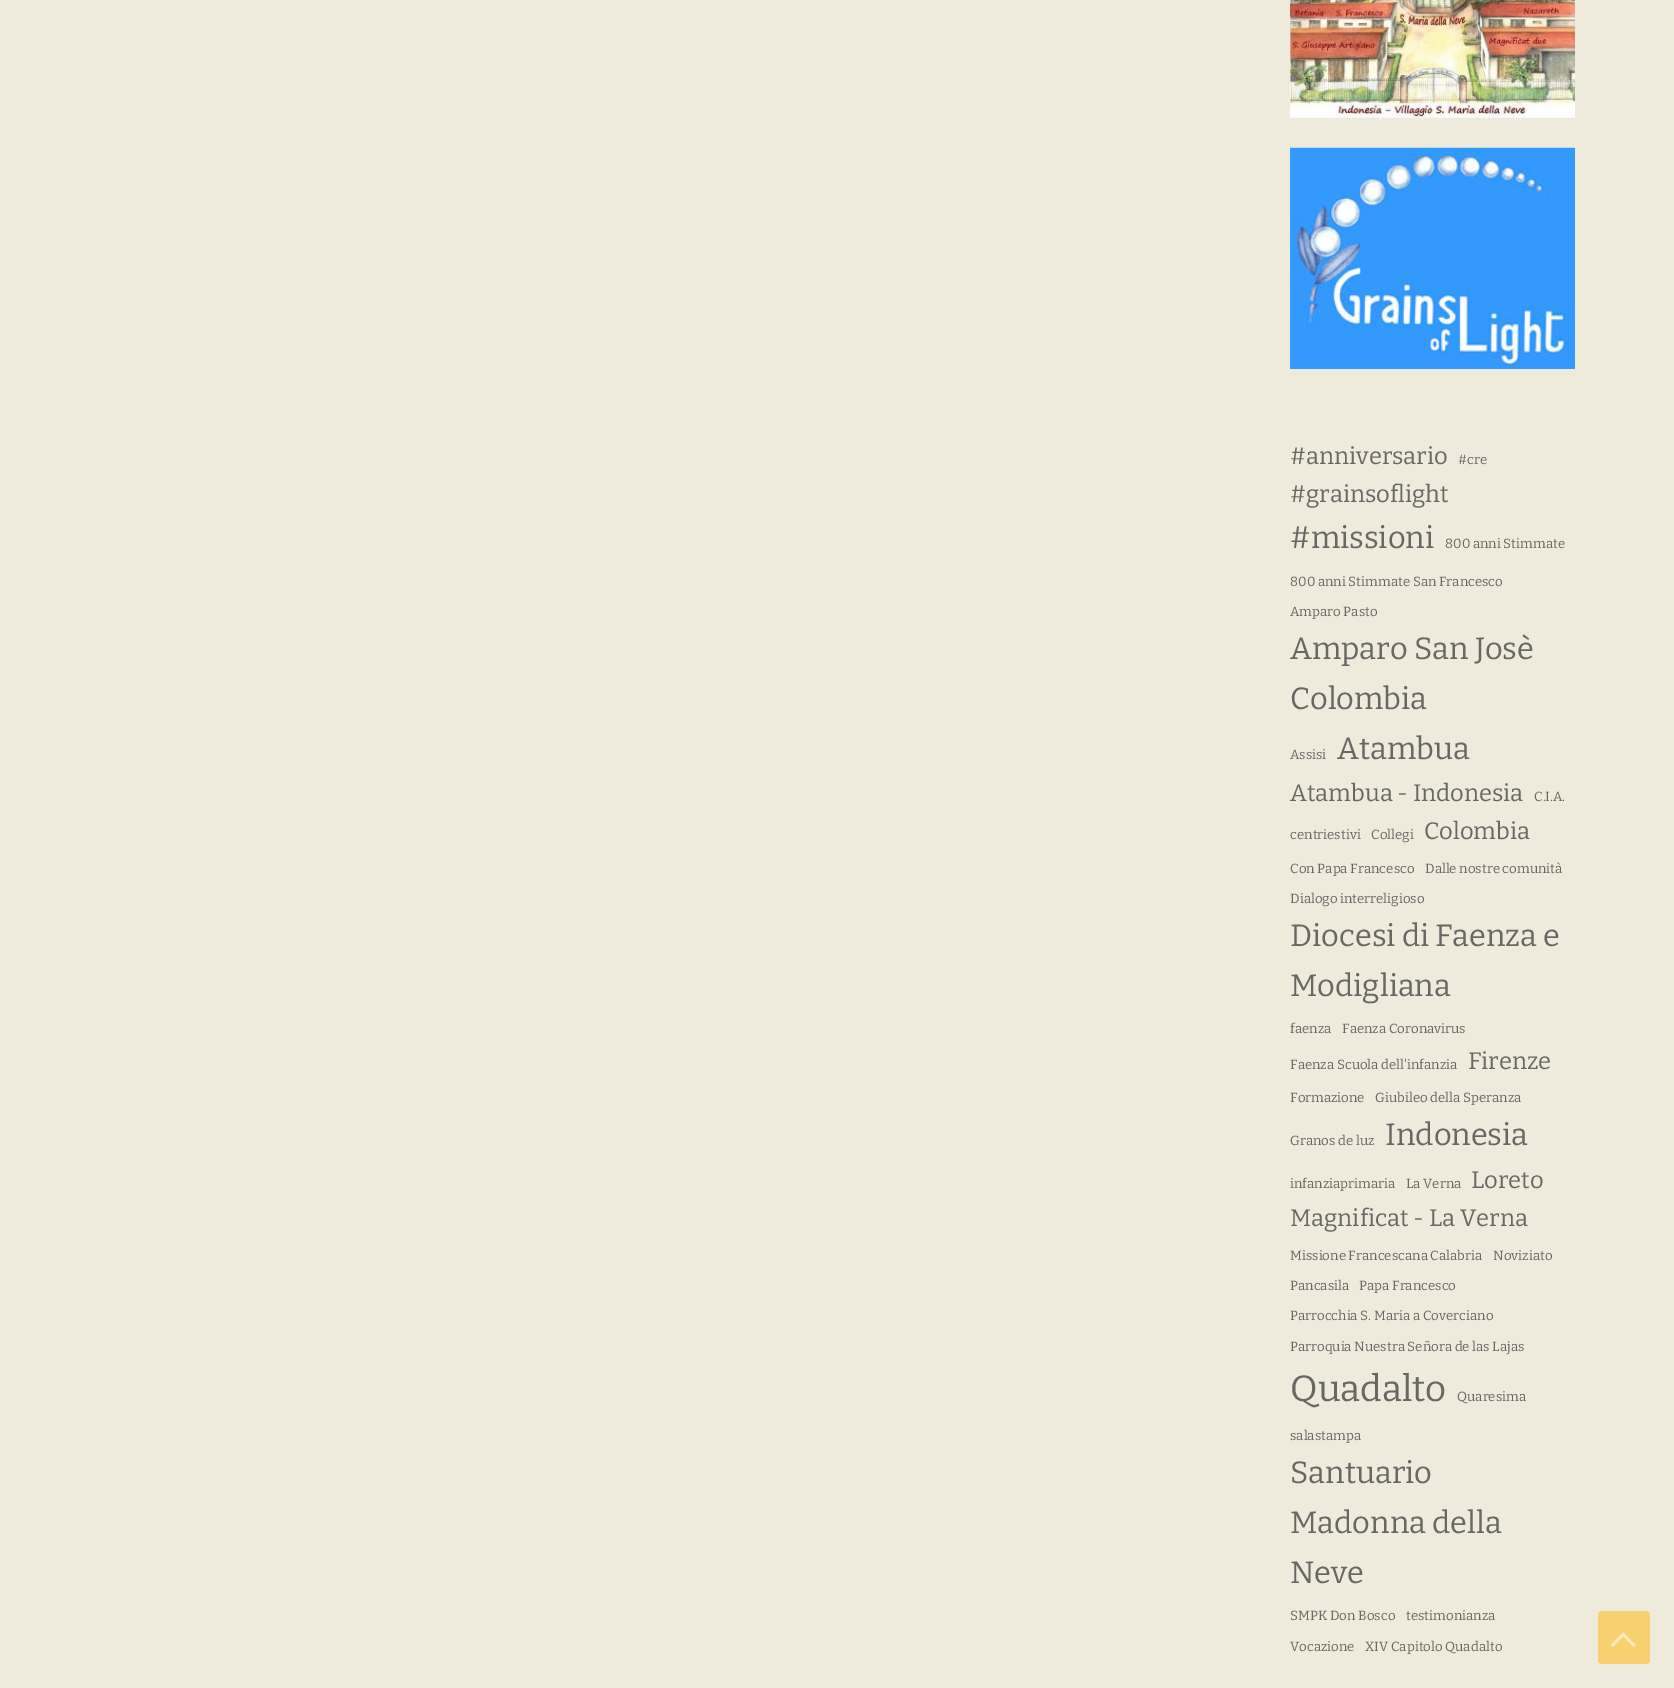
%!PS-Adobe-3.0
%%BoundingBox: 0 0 1674 1688
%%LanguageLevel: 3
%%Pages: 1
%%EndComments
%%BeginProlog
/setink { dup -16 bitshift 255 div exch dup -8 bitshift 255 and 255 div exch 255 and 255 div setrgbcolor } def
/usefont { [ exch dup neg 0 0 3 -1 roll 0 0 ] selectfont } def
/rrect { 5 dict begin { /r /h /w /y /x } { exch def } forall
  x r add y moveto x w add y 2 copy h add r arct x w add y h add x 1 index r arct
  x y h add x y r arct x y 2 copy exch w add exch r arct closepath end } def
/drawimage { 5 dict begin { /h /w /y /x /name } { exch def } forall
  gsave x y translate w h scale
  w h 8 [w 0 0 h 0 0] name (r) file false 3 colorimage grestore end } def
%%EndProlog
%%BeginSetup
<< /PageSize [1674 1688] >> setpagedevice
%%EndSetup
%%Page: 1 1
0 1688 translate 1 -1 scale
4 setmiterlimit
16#EEEBDD setink
0 0 1674 1688 rectfill
(img1.raw) 1290 0 285 118 drawimage
(img2.raw) 1290 147 285 222 drawimage
/Bitter-Regular 23.75 usefont
16#686763 setink
1290 464 moveto (#anniversario) show
/Bitter-Regular 13.3 usefont
1458 464 moveto (#cre) show
/Bitter-Regular 23.75 usefont
1290 502 moveto (#grainsoflight) show
/Bitter-Regular 30.75 usefont
1290 548 moveto (#missioni) show
/Bitter-Regular 13.3 usefont
[
    [(800 anni Stimmate) 1445 548]
    [(800 anni Stimmate San Francesco) 1290 586]
    [(Amparo Pasto) 1290 616]
] { aload pop moveto show } forall
/Bitter-Regular 30.75 usefont
1290 659 moveto (Amparo San Josè) show
1290 709 moveto (Colombia) show
/Bitter-Regular 13.3 usefont
1290 759 moveto (Assisi) show
/Bitter-Regular 30.75 usefont
1337 759 moveto (Atambua) show
/Bitter-Regular 23.75 usefont
1290 801 moveto (Atambua - Indonesia) show
/Bitter-Regular 13.3 usefont
[
    [(C.I.A.) 1534 801]
    [(centriestivi) 1290 839]
    [(Collegi) 1371 839]
] { aload pop moveto show } forall
/Bitter-Regular 23.75 usefont
1424 839 moveto (Colombia) show
/Bitter-Regular 13.3 usefont
[
    [(Con Papa Francesco) 1290 873]
    [(Dalle nostre comunità) 1425 873]
    [(Dialogo interreligioso) 1290 903]
] { aload pop moveto show } forall
/Bitter-Regular 30.75 usefont
1290 946 moveto (Diocesi di Faenza e) show
1290 996 moveto (Modigliana) show
/Bitter-Regular 13.3 usefont
[
    [(faenza) 1290 1033]
    [(Faenza Coronavirus) 1342 1033]
    [(Faenza Scuola dell'infanzia) 1290 1069]
] { aload pop moveto show } forall
/Bitter-Regular 23.75 usefont
1468 1069 moveto (Firenze) show
/Bitter-Regular 13.3 usefont
[
    [(Formazione) 1290 1102]
    [(Giubileo della Speranza) 1375 1102]
    [(Granos de luz) 1290 1145]
] { aload pop moveto show } forall
/Bitter-Regular 30.75 usefont
1385 1145 moveto (Indonesia) show
/Bitter-Regular 13.3 usefont
1290 1188 moveto (infanziaprimaria) show
1406 1188 moveto (La Verna) show
/Bitter-Regular 23.75 usefont
1471 1188 moveto (Loreto) show
1290 1226 moveto (Magnificat - La Verna) show
/Bitter-Regular 13.3 usefont
[
    [(Missione Francescana Calabria) 1290 1260]
    [(Noviziato) 1493 1260]
    [(Pancasila) 1290 1290]
    [(Papa Francesco) 1359 1290]
    [(Parrocchia S. Maria a Coverciano) 1290 1320]
    [(Parroquia Nuestra Señora de las Lajas) 1290 1351]
] { aload pop moveto show } forall
/Bitter-Regular 36.5 usefont
1290 1401 moveto (Quadalto) show
/Bitter-Regular 13.3 usefont
1457 1401 moveto (Quaresima) show
1290 1440 moveto (salastampa) show
/Bitter-Regular 30.75 usefont
[
    [(Santuario) 1290 1483]
    [(Madonna della) 1290 1533]
    [(Neve) 1290 1583]
] { aload pop moveto show } forall
/Bitter-Regular 13.3 usefont
[
    [(SMPK Don Bosco) 1290 1620]
    [(testimonianza) 1406 1620]
    [(Vocazione) 1290 1651]
    [(XIV Capitolo Quadalto) 1365 1651]
] { aload pop moveto show } forall
16#F7D06F setink
1598 1611 52 53 4 rrect fill
(img3.raw) 1610 1632 26 15 drawimage
showpage
%%EOF
